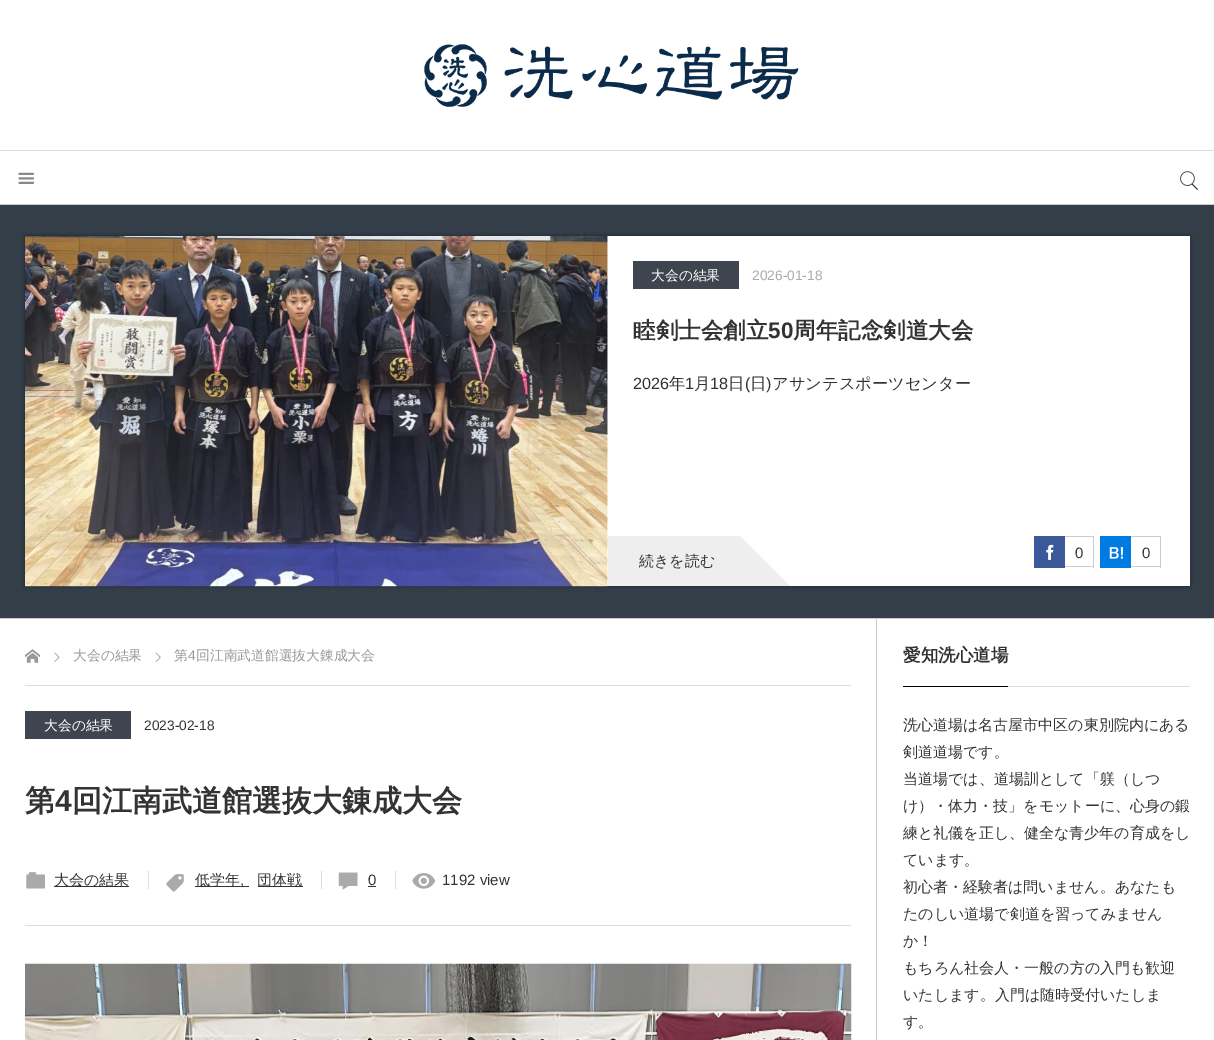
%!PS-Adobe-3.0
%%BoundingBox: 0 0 1214 1040
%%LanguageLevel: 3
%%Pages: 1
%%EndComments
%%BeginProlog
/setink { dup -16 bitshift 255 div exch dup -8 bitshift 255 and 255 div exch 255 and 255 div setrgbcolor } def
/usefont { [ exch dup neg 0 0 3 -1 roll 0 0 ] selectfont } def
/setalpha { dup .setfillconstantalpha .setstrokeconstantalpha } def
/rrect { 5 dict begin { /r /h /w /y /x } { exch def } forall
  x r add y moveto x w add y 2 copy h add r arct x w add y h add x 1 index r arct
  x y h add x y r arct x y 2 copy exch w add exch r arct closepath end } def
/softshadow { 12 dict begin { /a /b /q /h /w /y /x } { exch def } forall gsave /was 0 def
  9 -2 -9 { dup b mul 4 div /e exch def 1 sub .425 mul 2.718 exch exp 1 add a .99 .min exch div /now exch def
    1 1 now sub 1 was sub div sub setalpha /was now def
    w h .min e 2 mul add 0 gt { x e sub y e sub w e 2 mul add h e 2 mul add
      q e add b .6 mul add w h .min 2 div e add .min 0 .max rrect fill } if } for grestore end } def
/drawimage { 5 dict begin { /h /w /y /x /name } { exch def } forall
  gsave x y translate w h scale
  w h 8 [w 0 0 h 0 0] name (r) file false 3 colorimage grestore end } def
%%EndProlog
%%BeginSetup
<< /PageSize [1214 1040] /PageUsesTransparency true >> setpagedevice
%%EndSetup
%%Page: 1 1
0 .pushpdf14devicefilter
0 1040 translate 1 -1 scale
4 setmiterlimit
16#FFFFFF setink
0 0 1214 1040 rectfill
16#CCCCCC setink
0 204 1214 1 rectfill
16#DDDDDD setink
0 150 1214 1 rectfill
(img1.raw) 424 44 375 63 drawimage
(img2.raw) 18 172 17 12 drawimage
(img3.raw) 1180 171 18 19 drawimage
16#333E49 setink
0 205 1214 413 rectfill
16#CCCCCC setink
0 618 1214 1 rectfill
16#000000 setink
25 236 1165 350 0 2 0.4 softshadow
16#FFFFFF setink
607 236 583 350 rectfill
(img4.raw) 25 236 583 351 drawimage
16#3E454F setink
633 261 106 28 rectfill
/WenQuanYiZenHei-Medium 13.75 usefont
16#FFFFFF setink
651 280 moveto (大会の結果) show
/LiberationSans-Regular 13.75 usefont
16#AAAAAA setink
752 280 moveto (2026-01-18) show
/WenQuanYiZenHei-Bold 22.5 usefont
16#333333 setink
633 338 moveto (睦剣士会創立) show
/LiberationSans-Bold 22.5 usefont
768 338 moveto (50) show
/WenQuanYiZenHei-Bold 22.5 usefont
793 338 moveto (周年記念剣道大会) show
/LiberationSans-Regular 16.25 usefont
633 389 moveto (2026) show
/WenQuanYiZenHei-Medium 16.25 usefont
669 389 moveto (年) show
/LiberationSans-Regular 16.25 usefont
685 389 moveto (1) show
/WenQuanYiZenHei-Medium 16.25 usefont
694 389 moveto (月) show
/LiberationSans-Regular 16.25 usefont
710 389 moveto (18) show
/WenQuanYiZenHei-Medium 16.25 usefont
728 389 moveto (日) show
/LiberationSans-Regular 16.25 usefont
745 389 moveto (\() show
/WenQuanYiZenHei-Medium 16.25 usefont
750 389 moveto (日) show
/LiberationSans-Regular 16.25 usefont
766 389 moveto (\)) show
/WenQuanYiZenHei-Medium 16.25 usefont
772 389 moveto (アサンテスポーツセンター) show
16#EEEEEE setink
608 536 132 50 rectfill
/WenQuanYiZenHei-Medium 15 usefont
16#333333 setink
639 566 moveto (続きを読む) show
16#EEEEEE setink
740 586 moveto 740 536 lineto 790 586 lineto closepath fill
16#3B5998 setink
1034 536 31 32 rectfill
(img5.raw) 1046 544 8 16 drawimage
[
    [1065 536 29 1 16#CCCCCC]
    [1093 536 1 32 16#CCCCCC]
    [1065 566 29 1 16#CCCCCC]
] { aload pop setink rectfill } forall
/LiberationSans-Regular 15 usefont
16#333333 setink
1075 558 moveto (0) show
16#007BE3 setink
1100 536 31 32 rectfill
(img6.raw) 1109 547 15 12 drawimage
[
    [1131 536 30 1 16#CCCCCC]
    [1160 536 1 32 16#CCCCCC]
    [1131 566 30 1 16#CCCCCC]
] { aload pop setink rectfill } forall
16#333333 setink
1142 558 moveto (0) show
16#CCCCCC setink
876 619 1 421 rectfill
16#DDDDDD setink
25 685 826 1 rectfill
(img7.raw) 25 649 15 14 drawimage
(img8.raw) 54 652 6 11 drawimage
/WenQuanYiZenHei-Medium 13.75 usefont
16#999999 setink
73 660 moveto (大会の結果) show
(img9.raw) 155 652 6 10 drawimage
174 660 moveto (第) show
/LiberationSans-Regular 13.75 usefont
188 660 moveto (4) show
/WenQuanYiZenHei-Medium 13.75 usefont
196 660 moveto (回江南武道館選抜大錬成大会) show
16#DDDDDD setink
25 925 826 1 rectfill
16#3E454F setink
25 711 106 28 rectfill
16#FFFFFF setink
44 730 moveto (大会の結果) show
/LiberationSans-Regular 13.75 usefont
16#333333 setink
144 730 moveto (2023-02-18) show
/WenQuanYiZenHei-Bold 30 usefont
25 811 moveto (第) show
/LiberationSans-Bold 30 usefont
55 811 moveto (4) show
/WenQuanYiZenHei-Bold 30 usefont
72 811 moveto (回江南武道館選抜大錬成大会) show
16#DDDDDD setink
148 871 1 18 rectfill
(img10.raw) 26 872 19 17 drawimage
16#333333 setink
54 886 75 1 rectfill
/WenQuanYiZenHei-Medium 15 usefont
54 885 moveto (大会の結果) show
16#DDDDDD setink
321 871 1 18 rectfill
(img11.raw) 166 874 18 18 drawimage
16#333333 setink
195 886 54 1 rectfill
195 885 moveto (低学年) show
/LiberationSans-Regular 15 usefont
240 885 moveto (,) show
258 886 45 1 rectfill
/WenQuanYiZenHei-Medium 15 usefont
257 885 moveto (団体戦) show
16#DDDDDD setink
395 871 1 18 rectfill
(img12.raw) 338 872 20 18 drawimage
/LiberationSans-Regular 15 usefont
16#333333 setink
368 885 moveto (0) show
368 886 8 1 rectfill
(img13.raw) 412 873 24 16 drawimage
442 885 moveto (1192 view) show
(img14.raw) 25 963 827 77 drawimage
16#DDDDDD setink
1008 686 182 1 rectfill
16#000000 setink
903 686 105 1 rectfill
/WenQuanYiZenHei-Bold 17.5 usefont
16#333333 setink
903 661 moveto (愛知洗心道場) show
/WenQuanYiZenHei-Medium 15 usefont
[
    [(洗心道場は名古屋市中区の東別院内にある) 903 730]
    [(剣道道場です。) 903 757]
    [(当道場では、道場訓として「躾（しつ) 903 784]
    [(け）・体力・技」をモットーに、心身の鍛) 903 811]
] { aload pop moveto show } forall
gsave
903 623 287 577 rectclip
903 838 moveto (練と礼儀を正し、健全な青少年の育成をし) show
grestore
[
    [(ています。) 903 865]
    [(初心者・経験者は問いません。あなたも) 903 892]
    [(たのしい道場で剣道を習ってみません) 903 919]
    [(か！) 903 946]
    [(もちろん社会人・一般の方の入門も歓迎) 903 973]
    [(いたします。入門は随時受付いたしま) 903 1000]
    [(す。) 903 1027]
] { aload pop moveto show } forall
.poppdf14devicefilter showpage
%%EOF
